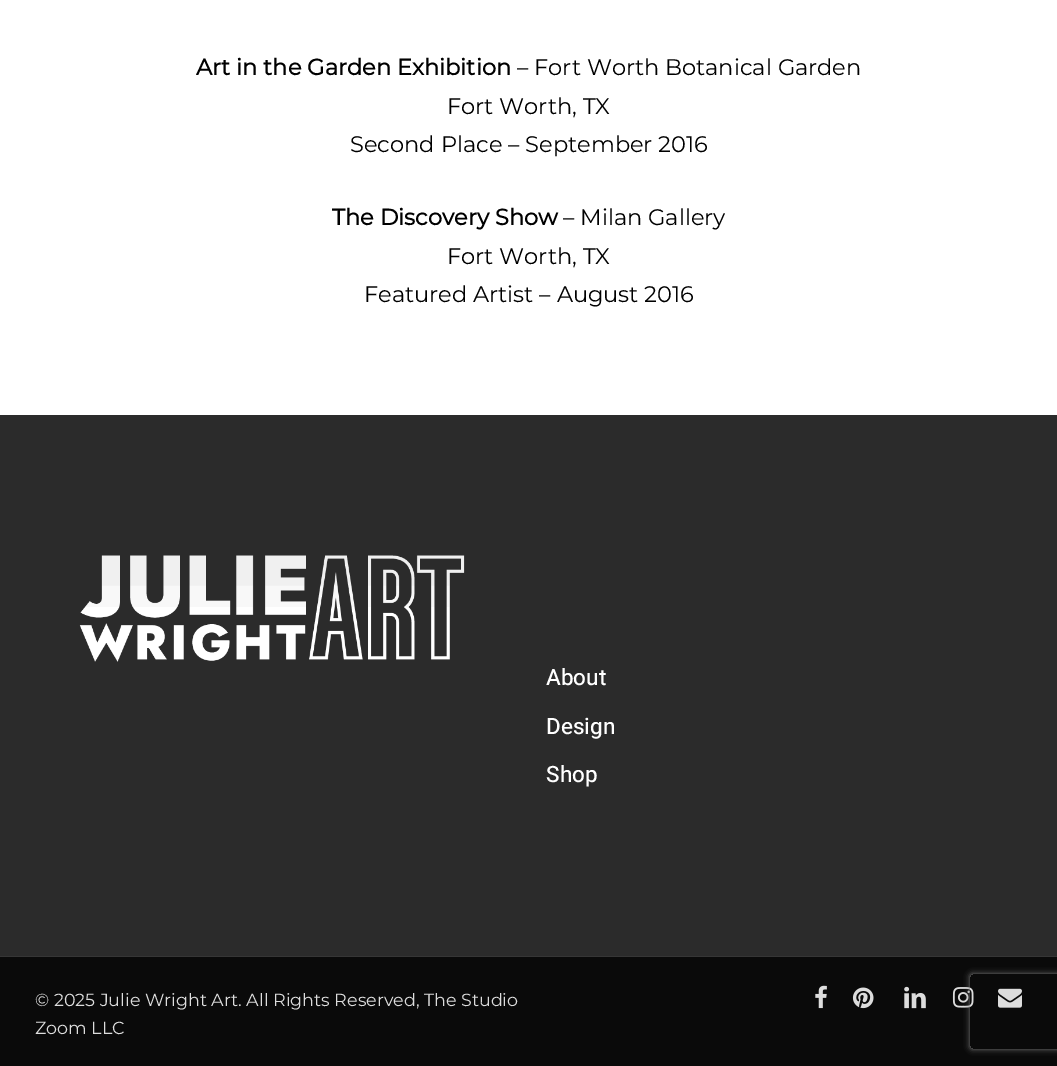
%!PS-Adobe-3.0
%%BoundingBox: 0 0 1057 1066
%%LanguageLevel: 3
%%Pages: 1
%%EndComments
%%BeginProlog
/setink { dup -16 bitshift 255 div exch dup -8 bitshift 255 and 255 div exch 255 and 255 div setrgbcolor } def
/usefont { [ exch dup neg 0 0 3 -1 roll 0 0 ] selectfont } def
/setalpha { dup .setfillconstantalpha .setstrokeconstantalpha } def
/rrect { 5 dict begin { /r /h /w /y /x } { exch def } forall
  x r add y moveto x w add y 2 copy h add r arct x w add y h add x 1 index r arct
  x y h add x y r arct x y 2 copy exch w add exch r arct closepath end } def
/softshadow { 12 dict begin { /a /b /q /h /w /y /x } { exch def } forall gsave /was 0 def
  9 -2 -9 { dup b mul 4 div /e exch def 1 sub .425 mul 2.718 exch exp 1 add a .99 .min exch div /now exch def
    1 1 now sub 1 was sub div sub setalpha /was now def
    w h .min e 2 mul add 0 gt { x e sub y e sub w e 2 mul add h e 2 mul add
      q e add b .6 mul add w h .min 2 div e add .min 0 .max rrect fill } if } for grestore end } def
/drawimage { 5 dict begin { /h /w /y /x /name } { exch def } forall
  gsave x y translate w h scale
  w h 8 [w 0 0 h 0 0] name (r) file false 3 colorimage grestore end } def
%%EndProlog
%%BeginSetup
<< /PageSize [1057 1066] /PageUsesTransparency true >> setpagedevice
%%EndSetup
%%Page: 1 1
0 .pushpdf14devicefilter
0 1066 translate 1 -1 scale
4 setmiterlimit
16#FFFFFF setink
0 0 1057 1066 rectfill
16#2B2B2B setink
0 415 1057 541 rectfill
(img1.raw) 79 555 386 107 drawimage
gsave
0 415 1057 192 rectclip
38 -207 982 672 0 69 1 softshadow
grestore
/Montserrat-Bold 22.5 usefont
16#000000 setink
196 75 moveto (Art in the Garden Exhibition) show
/Montserrat-Thin 22.5 usefont
[
    [(– Fort Worth Botanical Garden) 517 75]
    [(Fort Worth, TX) 447 114]
    [(Second Place – September 2016) 350 152]
] { aload pop moveto show } forall
/Montserrat-Bold 22.5 usefont
332 225 moveto (The Discovery Show) show
/Montserrat-Thin 22.5 usefont
[
    [(– Milan Gallery) 563 225]
    [(Fort Worth, TX) 447 264]
    [(Featured Artist – August 2016) 364 302]
] { aload pop moveto show } forall
/Heebo-Medium 22.5 usefont
16#FFFFFF setink
[
    [(About) 546 685]
    [(Design) 546 734]
    [(Shop) 546 782]
] { aload pop moveto show } forall
16#0A0A0A setink
0 957 1057 109 rectfill
16#363636 setink
0 956 1057 1 rectfill
/Montserrat-Thin 17.5 usefont
16#DDDDDD setink
35 1006 moveto (© 2025 Julie Wright Art. All Rights Reserved, The Studio) show
35 1034 moveto (Zoom LLC) show
(img2.raw) 815 985 12 24 drawimage
(img3.raw) 852 987 22 22 drawimage
(img4.raw) 904 986 22 23 drawimage
(img5.raw) 952 987 22 21 drawimage
(img6.raw) 998 988 24 20 drawimage
gsave
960 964 moveto 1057 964 lineto 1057 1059 lineto 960 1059 lineto closepath 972.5 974 moveto 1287.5 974 lineto 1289 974 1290 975 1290 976.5 curveto 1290 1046.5 lineto 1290 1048 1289 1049 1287.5 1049 curveto 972.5 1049 lineto 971 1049 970 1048 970 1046.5 curveto 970 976.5 lineto 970 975 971 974 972.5 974 curveto closepath eoclip newpath
16#808080 setink
970 974 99 75 2.5 3 1 softshadow
grestore
.poppdf14devicefilter showpage
%%EOF
